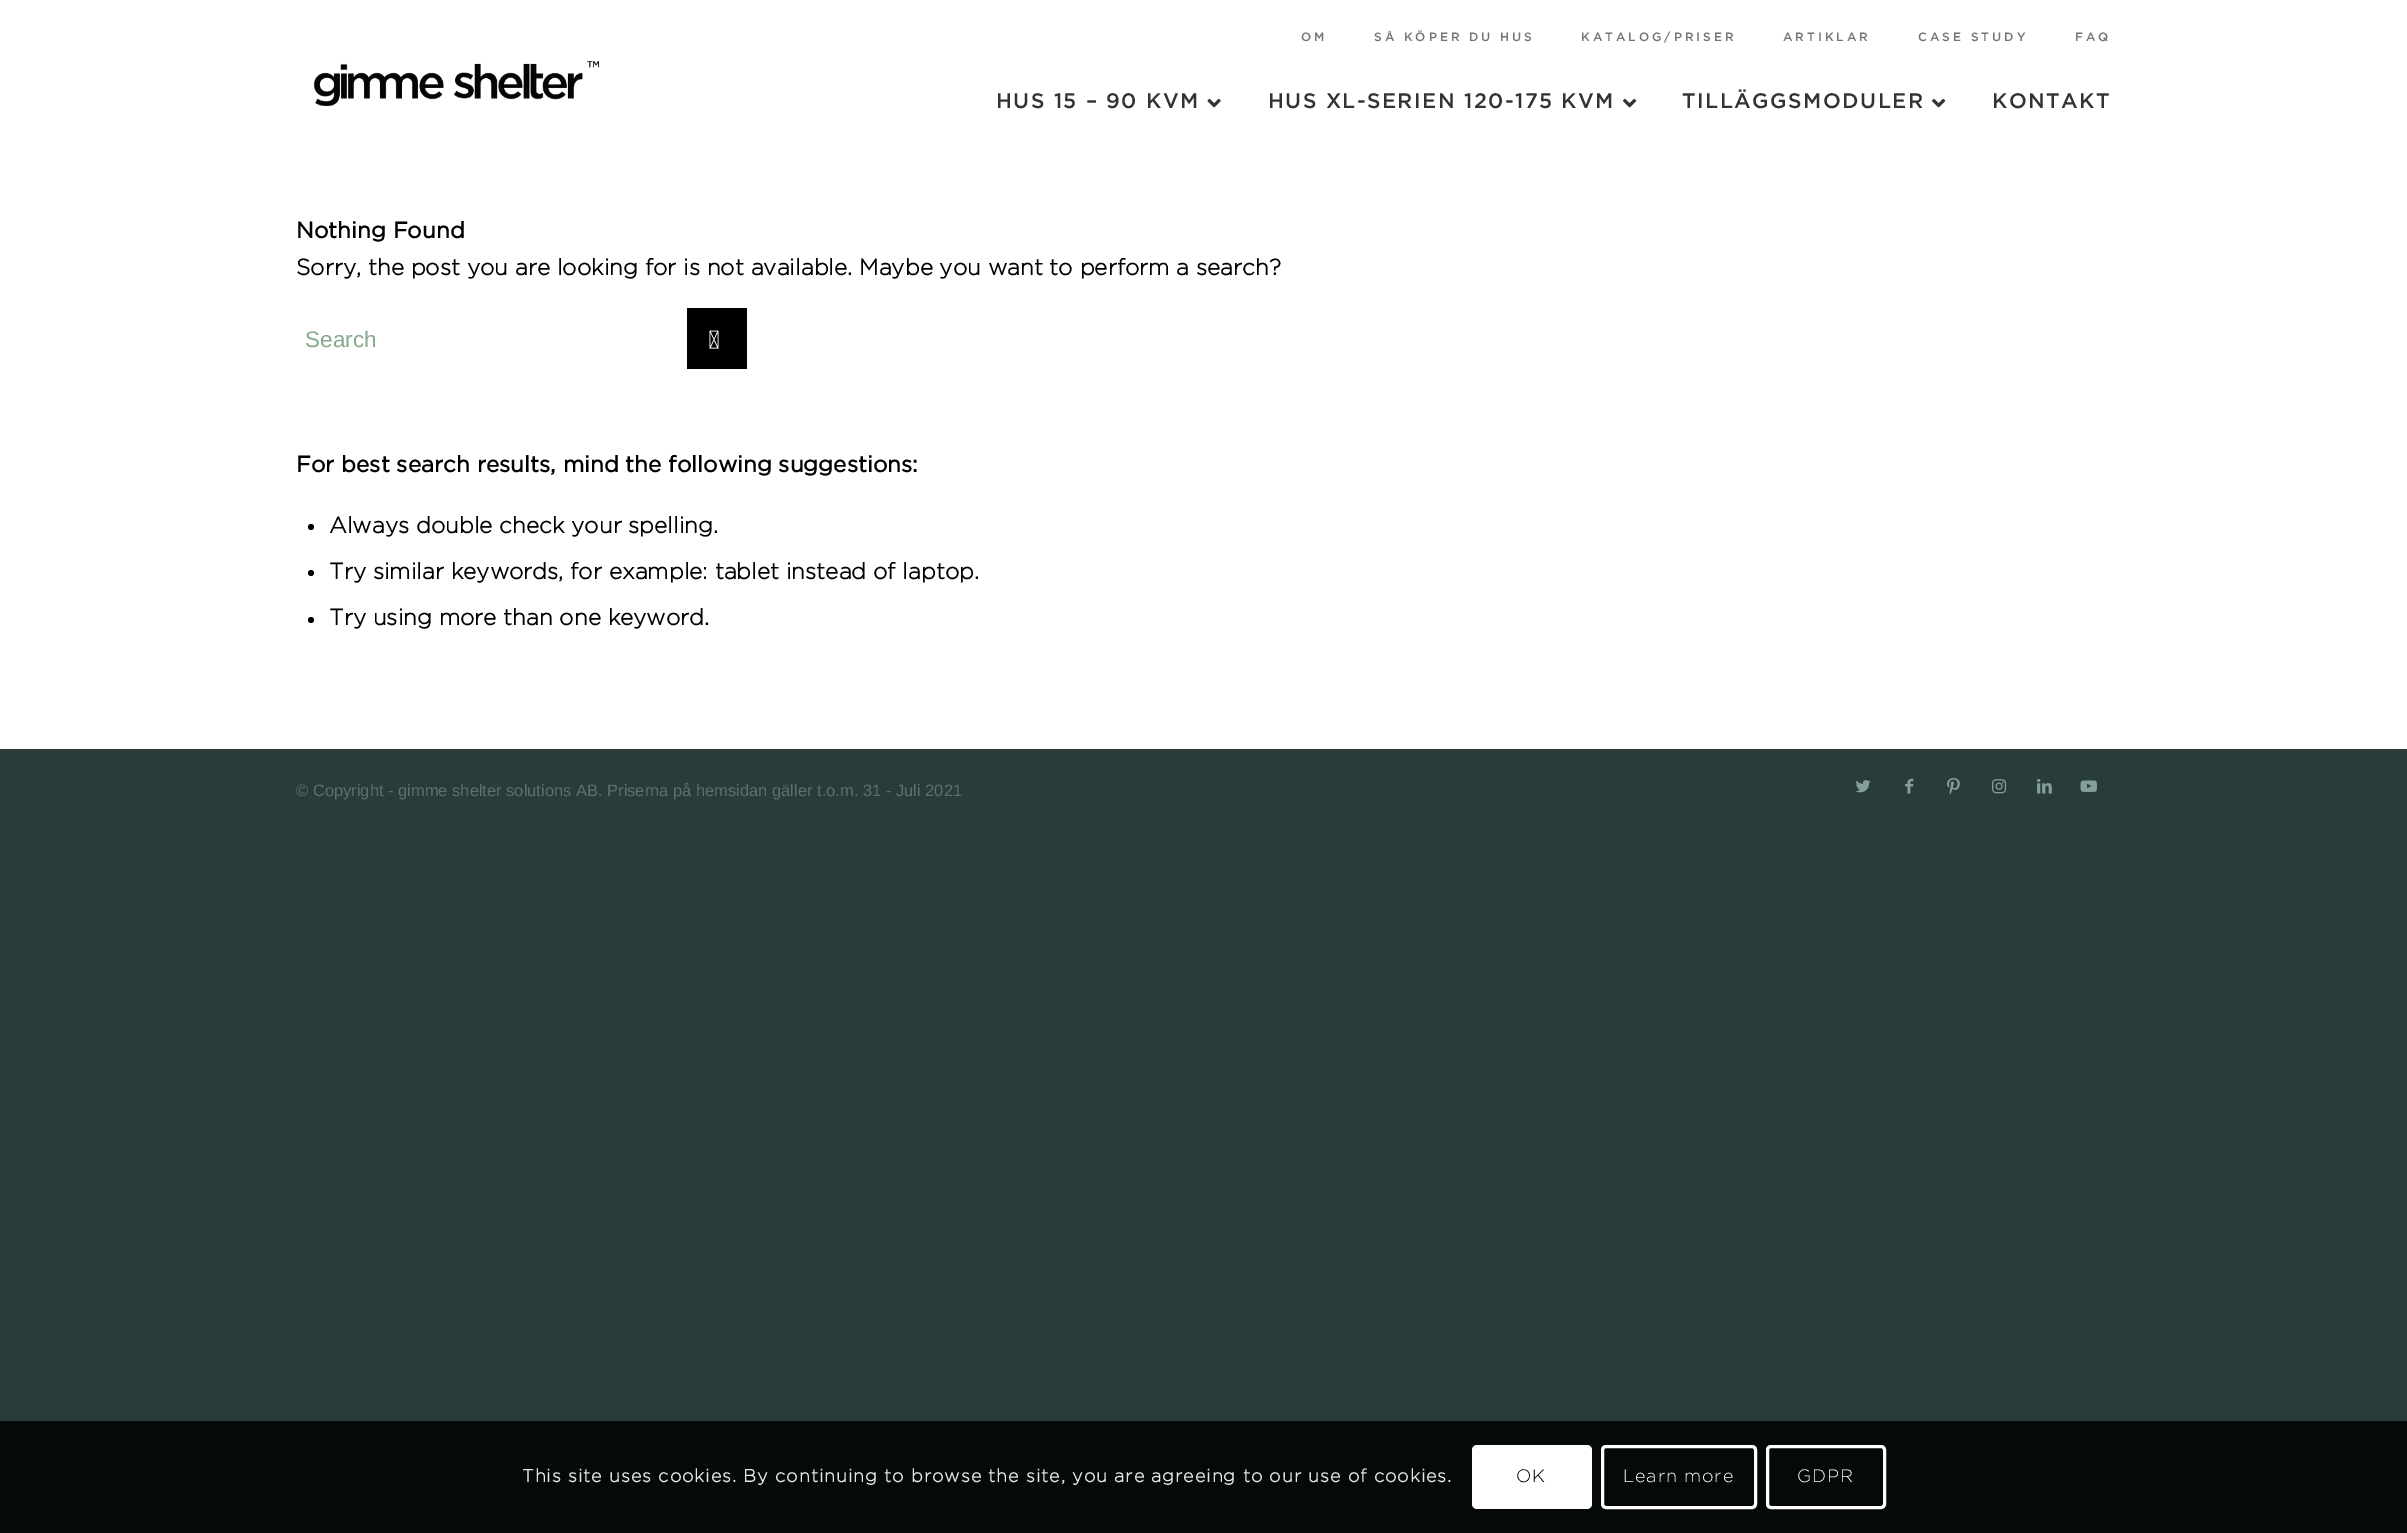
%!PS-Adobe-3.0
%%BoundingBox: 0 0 2407 1533
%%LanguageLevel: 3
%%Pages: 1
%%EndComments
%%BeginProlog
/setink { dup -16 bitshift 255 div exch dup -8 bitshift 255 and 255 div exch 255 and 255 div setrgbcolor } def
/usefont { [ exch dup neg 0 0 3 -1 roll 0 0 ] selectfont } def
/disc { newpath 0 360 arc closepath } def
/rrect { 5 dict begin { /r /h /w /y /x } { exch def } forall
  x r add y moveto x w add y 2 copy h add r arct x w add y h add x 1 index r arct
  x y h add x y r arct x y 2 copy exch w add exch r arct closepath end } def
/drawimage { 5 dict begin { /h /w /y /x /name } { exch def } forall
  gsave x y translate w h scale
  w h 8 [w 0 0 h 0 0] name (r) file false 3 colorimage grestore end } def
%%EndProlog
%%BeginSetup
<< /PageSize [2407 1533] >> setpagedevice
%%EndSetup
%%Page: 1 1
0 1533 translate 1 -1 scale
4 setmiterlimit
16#283D3B setink
0 0 2407 1533 rectfill
16#FFFFFF setink
0 0 2407 749 rectfill
/Gotham-Medium 12 usefont
16#747474 setink
1301 41 moveto 3 0 (OM) ashow
1374 41 moveto 3 0 (SÅ KÖPER DU HUS) ashow
1581 41 moveto 3 0 (KATALOG/PRISER) ashow
1783 41 moveto 3 0 (ARTIKLAR) ashow
1918 41 moveto 3 0 (CASE STUDY) ashow
2075 41 moveto 3 0 (FAQ) ashow
(img1.raw) 313 61 287 46 drawimage
/Gotham-Medium 21 usefont
16#333333 setink
996 108 moveto 1.5 0 (HUS 15 – 90 KVM) ashow
(img2.raw) 1207 98 14 10 drawimage
1268 108 moveto 1.5 0 (HUS XL-SERIEN 120-175 KVM) ashow
(img3.raw) 1623 98 14 10 drawimage
1682 108 moveto 1.5 0 (TILLÄGGSMODULER) ashow
(img3.raw) 1932 98 14 10 drawimage
1992 108 moveto 1.5 0 (KONTAKT) ashow
/Gotham-Bold 22.5 usefont
16#000000 setink
296 238 moveto (Nothing Found) show
/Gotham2-Bold 22.5 usefont
296 275 moveto (Sorry, the post you are looking for is not available. Maybe you want to perform a search?) show
/LiberationSans-Regular 22.5 usefont
16#85AA8D setink
305 347 moveto (Search) show
16#000000 setink
687 308 60 61 rectfill
(img4.raw) 709 330 10 19 drawimage
/Gotham-Bold 22.5 usefont
296 472 moveto (For best search results, mind the following suggestions:) show
311 527 3 disc fill
/Gotham2-Bold 22.5 usefont
329 533 moveto (Always double check your spelling.) show
311 573 3 disc fill
329 579 moveto (Try similar keywords, for example: tablet instead of laptop.) show
311 620 3 disc fill
329 625 moveto (Try using more than one keyword.) show
16#323D3C setink
0 749 2407 2 rectfill
/LiberationSans-Regular 16.5 usefont
16#5C706E setink
296 796 moveto (© Copyright - gimme shelter solutions AB. Priserna på hemsidan gäller t.o.m. 31 - Juli 2021) show
(img5.raw) 1855 780 16 13 drawimage
(img6.raw) 1905 778 9 16 drawimage
(img7.raw) 1947 778 13 17 drawimage
(img8.raw) 1992 779 15 15 drawimage
(img9.raw) 2037 778 15 16 drawimage
(img10.raw) 2080 780 17 12 drawimage
16#060909 setink
0 1421 2407 112 rectfill
/Gotham2-Bold 18 usefont
16#E6E6E6 setink
522 1482 moveto 0.9 0 (This site uses cookies. By continuing to browse the site, you are agreeing to our use of cookies.) ashow
16#FFFFFF setink
1472 1445 120 64 5 rrect fill
/Gotham-Light 18 usefont
16#000000 setink
1516 1482 moveto 0.9 0 (OK) ashow
16#FFFFFF setink
3 setlinewidth
1602.5 1446.5 153 61 3.5 rrect stroke
1623 1482 moveto 0.9 0 (Learn more) ashow
1767.5 1446.5 117 61 3.5 rrect stroke
1797 1482 moveto 0.9 0 (GDPR) ashow
showpage
%%EOF
